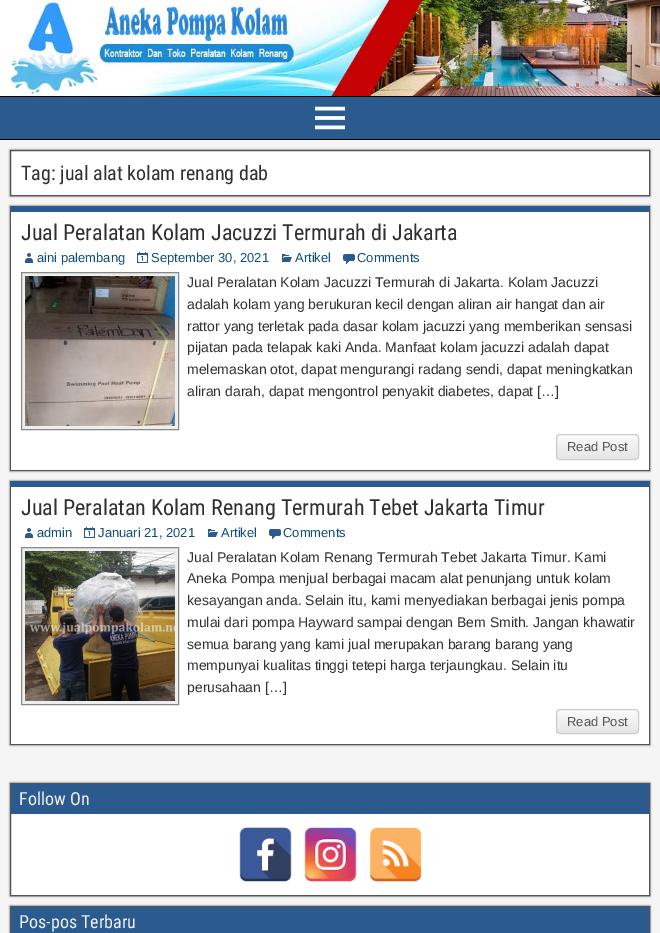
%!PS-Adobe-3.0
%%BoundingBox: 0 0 660 933
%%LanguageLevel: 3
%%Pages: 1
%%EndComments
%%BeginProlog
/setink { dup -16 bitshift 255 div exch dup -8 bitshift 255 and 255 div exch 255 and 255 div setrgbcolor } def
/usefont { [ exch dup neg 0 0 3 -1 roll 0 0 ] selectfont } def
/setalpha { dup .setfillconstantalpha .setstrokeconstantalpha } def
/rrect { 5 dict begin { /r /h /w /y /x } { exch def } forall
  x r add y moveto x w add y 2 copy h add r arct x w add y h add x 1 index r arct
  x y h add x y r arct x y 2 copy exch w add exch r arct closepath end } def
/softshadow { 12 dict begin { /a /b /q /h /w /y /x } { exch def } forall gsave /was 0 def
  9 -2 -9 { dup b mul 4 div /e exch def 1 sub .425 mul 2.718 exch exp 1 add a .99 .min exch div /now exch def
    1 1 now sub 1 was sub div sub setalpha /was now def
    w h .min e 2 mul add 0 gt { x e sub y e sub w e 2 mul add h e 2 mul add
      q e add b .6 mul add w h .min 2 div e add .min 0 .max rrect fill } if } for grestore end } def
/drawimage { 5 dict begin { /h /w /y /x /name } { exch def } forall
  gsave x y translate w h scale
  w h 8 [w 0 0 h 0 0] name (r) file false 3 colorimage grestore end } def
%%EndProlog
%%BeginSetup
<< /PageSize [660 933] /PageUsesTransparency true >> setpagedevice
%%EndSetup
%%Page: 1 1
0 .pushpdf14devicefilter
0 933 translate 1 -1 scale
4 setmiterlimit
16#FFFFFF setink
0 0 660 933 rectfill
16#000000 setink
0 96 660 1 rectfill
(img1.raw) 10 0 650 96 drawimage
16#2A5A8E setink
0 97 660 42 rectfill
16#000000 setink
0 139 660 1 rectfill
(img2.raw) 315 106 30 24 drawimage
16#F5F5F5 setink
0 140 660 793 rectfill
16#333333 setink
10 150 640 46 0 1 1 softshadow
16#FFFFFF setink
10.5 150.5 moveto 649.5 150.5 lineto 649.5 195.5 lineto 10.5 195.5 lineto closepath gsave fill grestore
16#555555 setink
stroke
/RobotoCondensed-Regular 20 usefont
16#303030 setink
21 180 moveto (Tag: jual alat kolam renang dab) show
16#333333 setink
10 206 640 265 0 1 1 softshadow
16#FFFFFF setink
11 212 638 258 rectfill
16#2A5A8E setink
10 206 moveto 650 206 lineto 649 212 lineto 11 212 lineto closepath fill
16#555555 setink
650 206 moveto 650 471 lineto 649 470 lineto 649 212 lineto closepath fill
10 470 640 1 rectfill
10 471 moveto 10 206 lineto 11 212 lineto 11 470 lineto closepath fill
/RobotoCondensed-Regular 22 usefont
16#303030 setink
21 240 moveto (Jual Peralatan Kolam Jacuzzi Termurah di Jakarta) show
(img3.raw) 25 253 8 10 drawimage
/LiberationSans-Regular 13 usefont
16#0E4D7A setink
37 262 moveto (aini palembang) show
(img4.raw) 137 252 11 11 drawimage
151 262 moveto (September 30, 2021) show
(img5.raw) 282 254 10 8 drawimage
295 262 moveto (Artikel) show
(img6.raw) 343 254 12 11 drawimage
357 262 moveto (Comments) show
16#EEEEEE setink
21.5 272.5 moveto 178.5 272.5 lineto 178.5 429.5 lineto 21.5 429.5 lineto closepath gsave fill grestore
16#888888 setink
stroke
(img7.raw) 25 276 150 150 drawimage
/Arimo-Regular 14 usefont
16#303030 setink
[
    [(Jual Peralatan Kolam Jacuzzi Termurah di Jakarta. Kolam Jacuzzi) 187 287]
    [(adalah kolam yang berukuran kecil dengan aliran air hangat dan air) 187 309]
    [(rattor yang terletak pada dasar kolam jacuzzi yang memberikan sensasi) 187 331]
    [(pijatan pada telapak kaki Anda. Manfaat kolam jacuzzi adalah dapat) 187 352]
    [(melemaskan otot, dapat mengurangi radang sendi, dapat meningkatkan) 187 374]
    [(aliran darah, dapat mengontrol penyakit diabetes, dapat […]) 187 396]
] { aload pop moveto show } forall
gsave
556 434 83 26 4 rrect clip newpath
gsave 556 435 moveto 639 435 lineto 639 459 lineto 556 459 lineto closepath clip newpath
<< /ShadingType 2 /ColorSpace /DeviceRGB /Coords [598 435 598 459] /Extend [true true] /Function << /FunctionType 2 /Domain [0 1] /C0 [0.984 0.984 0.984] /C1 [0.898 0.898 0.898] /N 1 >> >> shfill grestore
grestore
16#CCCCCC setink
556.5 434.5 82 25 3.5 rrect stroke
/LiberationSans-Regular 13 usefont
16#555555 setink
567 451 moveto (Read Post) show
16#333333 setink
10 481 640 264 0 1 1 softshadow
16#FFFFFF setink
11 487 638 257 rectfill
16#2A5A8E setink
10 481 moveto 650 481 lineto 649 487 lineto 11 487 lineto closepath fill
16#555555 setink
650 481 moveto 650 745 lineto 649 744 lineto 649 487 lineto closepath fill
10 744 640 1 rectfill
10 745 moveto 10 481 lineto 11 487 lineto 11 744 lineto closepath fill
/RobotoCondensed-Regular 22 usefont
16#303030 setink
21 515 moveto (Jual Peralatan Kolam Renang Termurah Tebet Jakarta Timur) show
(img3.raw) 25 528 8 10 drawimage
/LiberationSans-Regular 13 usefont
16#0E4D7A setink
37 537 moveto (admin) show
(img4.raw) 84 527 11 11 drawimage
98 537 moveto (Januari 21, 2021) show
(img5.raw) 208 529 10 8 drawimage
221 537 moveto (Artikel) show
(img6.raw) 269 529 12 11 drawimage
283 537 moveto (Comments) show
16#EEEEEE setink
21.5 547.5 moveto 178.5 547.5 lineto 178.5 704.5 lineto 21.5 704.5 lineto closepath gsave fill grestore
16#888888 setink
stroke
(img8.raw) 25 551 150 150 drawimage
/Arimo-Regular 14 usefont
16#303030 setink
[
    [(Jual Peralatan Kolam Renang Termurah Tebet Jakarta Timur. Kami) 187 562]
    [(Aneka Pompa menjual berbagai macam alat penunjang untuk kolam) 187 583]
    [(kesayangan anda. Selain itu, kami menyediakan berbagai jenis pompa) 187 605]
    [(mulai dari pompa Hayward sampai dengan Bem Smith. Jangan khawatir) 187 627]
    [(semua barang yang kami jual merupakan barang barang yang) 187 649]
    [(mempunyai kualitas tinggi tetepi harga terjaungkau. Selain itu) 187 670]
    [(perusahaan […]) 187 692]
] { aload pop moveto show } forall
gsave
556 709 83 25 4 rrect clip newpath
gsave 556 710 moveto 639 710 lineto 639 733 lineto 556 733 lineto closepath clip newpath
<< /ShadingType 2 /ColorSpace /DeviceRGB /Coords [598 710 598 733] /Extend [true true] /Function << /FunctionType 2 /Domain [0 1] /C0 [0.984 0.984 0.984] /C1 [0.898 0.898 0.898] /N 1 >> >> shfill grestore
grestore
16#CCCCCC setink
556.5 709.5 82 24 3.5 rrect stroke
/LiberationSans-Regular 13 usefont
16#555555 setink
567 726 moveto (Read Post) show
16#333333 setink
10 783 640 113 0 1 1 softshadow
16#FFFFFF setink
11 814 638 81 rectfill
16#555555 setink
10.5 783.5 639 112 rectstroke
16#2A5A8E setink
11 784 638 30 rectfill
/RobotoCondensed-Regular 18 usefont
16#EEEEEE setink
19 805 moveto (Follow On) show
(img9.raw) 239 827 53 55 drawimage
(img10.raw) 304 827 53 55 drawimage
(img11.raw) 369 827 53 55 drawimage
16#333333 setink
10 906 640 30 0 1 1 softshadow
16#555555 setink
10.5 906.5 639 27 rectstroke
16#2A5A8E setink
11 907 638 26 rectfill
16#EEEEEE setink
19 928 moveto (Pos-pos Terbaru) show
.poppdf14devicefilter showpage
%%EOF
